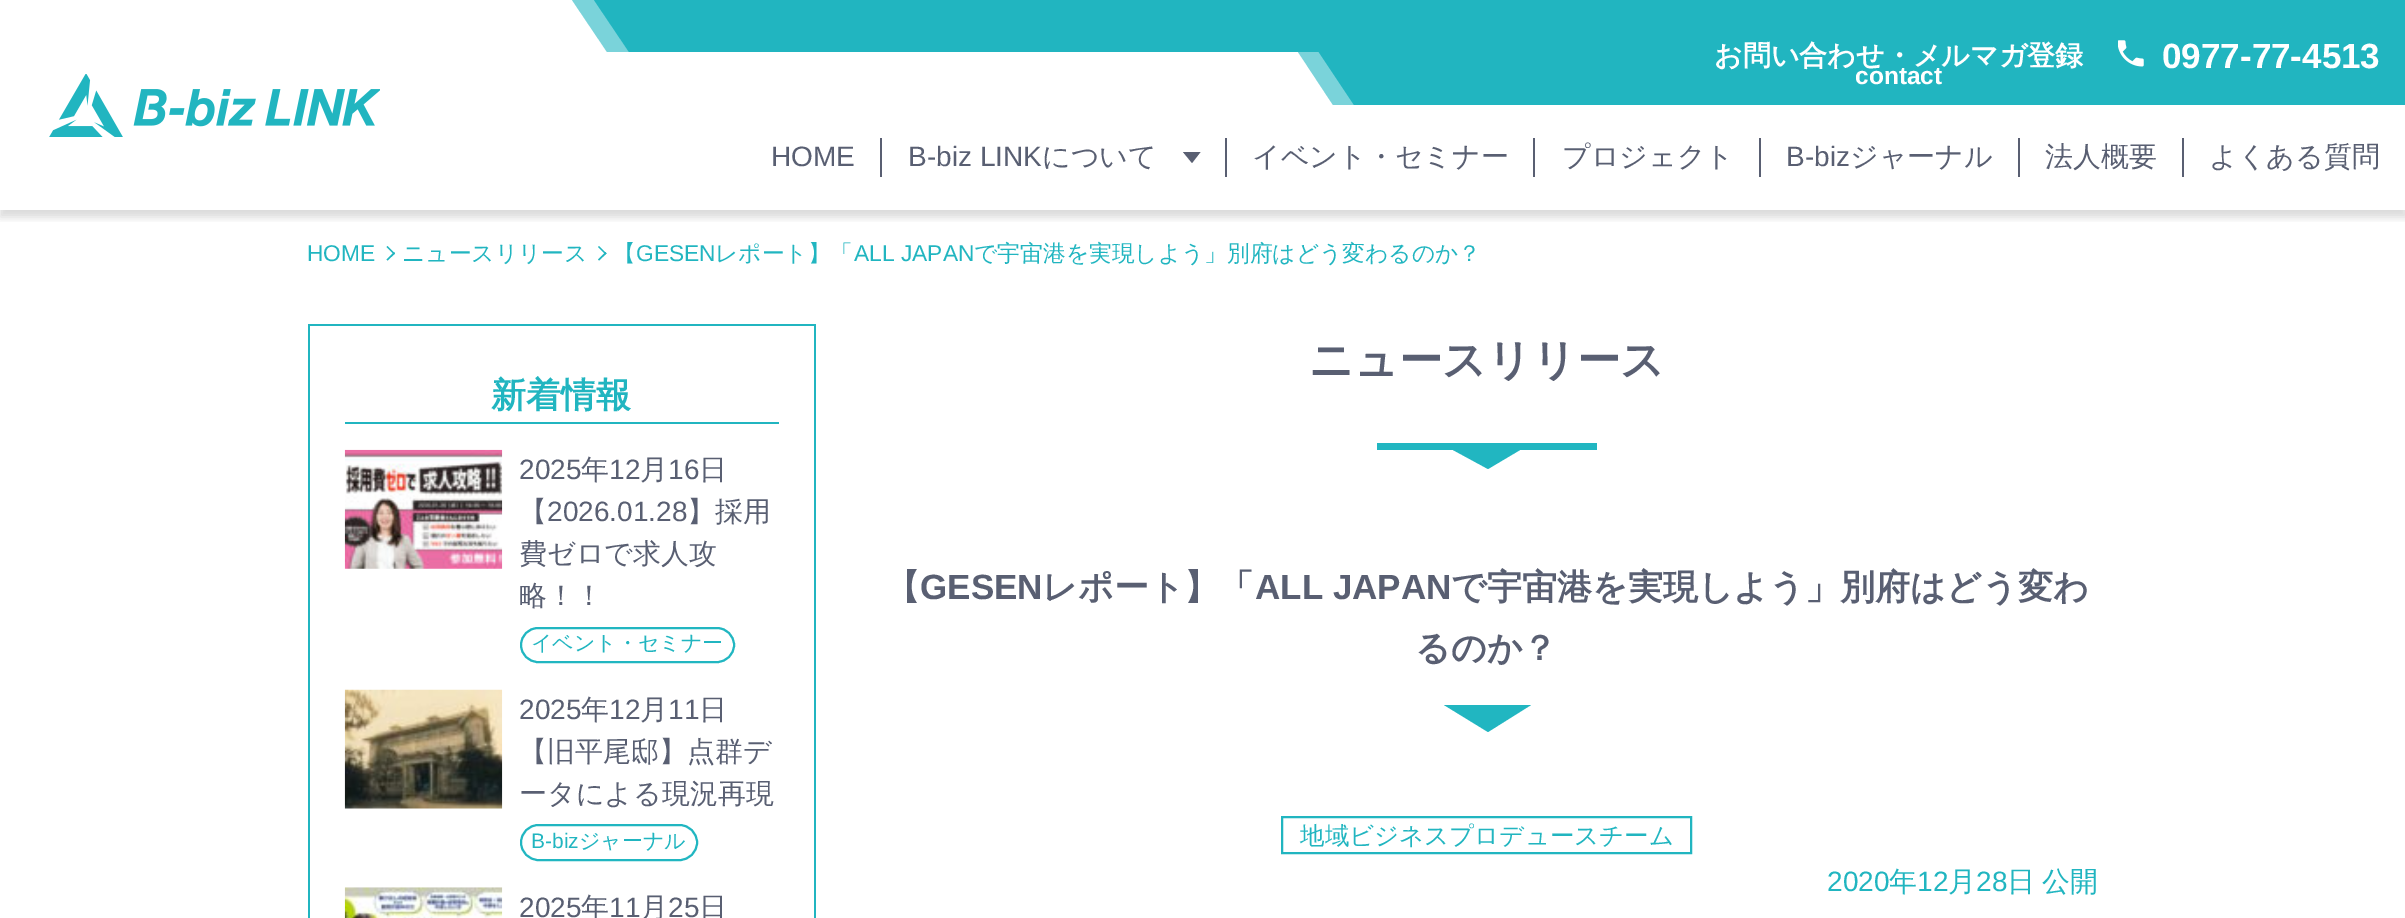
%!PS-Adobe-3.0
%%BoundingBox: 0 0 2405 918
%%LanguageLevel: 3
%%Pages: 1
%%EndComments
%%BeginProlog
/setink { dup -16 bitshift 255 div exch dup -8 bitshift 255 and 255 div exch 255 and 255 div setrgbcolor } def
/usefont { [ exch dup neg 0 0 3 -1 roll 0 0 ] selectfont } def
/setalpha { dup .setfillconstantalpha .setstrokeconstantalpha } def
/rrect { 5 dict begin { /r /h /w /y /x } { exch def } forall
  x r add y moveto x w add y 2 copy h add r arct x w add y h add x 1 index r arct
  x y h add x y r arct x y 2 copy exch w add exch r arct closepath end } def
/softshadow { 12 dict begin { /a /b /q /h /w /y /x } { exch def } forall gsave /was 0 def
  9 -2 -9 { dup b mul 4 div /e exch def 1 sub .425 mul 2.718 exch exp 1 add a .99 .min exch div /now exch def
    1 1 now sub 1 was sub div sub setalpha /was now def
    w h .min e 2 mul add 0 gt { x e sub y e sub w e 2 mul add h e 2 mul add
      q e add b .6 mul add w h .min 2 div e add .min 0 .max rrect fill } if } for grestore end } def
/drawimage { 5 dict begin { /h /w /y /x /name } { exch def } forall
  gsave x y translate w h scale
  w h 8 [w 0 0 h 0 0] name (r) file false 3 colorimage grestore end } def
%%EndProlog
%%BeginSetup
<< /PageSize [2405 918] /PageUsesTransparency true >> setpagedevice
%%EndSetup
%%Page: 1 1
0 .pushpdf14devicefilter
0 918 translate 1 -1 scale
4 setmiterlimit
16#FFFFFF setink
0 0 2405 918 rectfill
gsave
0 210 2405 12 rectclip
16#000000 setink
0 7 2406 210 0 4.5 0.15 softshadow
grestore
16#7AD3DA setink
1301 52 moveto 607 52 lineto 572 0 lineto 1266 0 lineto closepath fill
2027 105 moveto 1333 105 lineto 1298 52 lineto 1992 52 lineto closepath fill
16#21B5C0 setink
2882 105 moveto 1354 105 lineto 1284 0 lineto 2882 0 lineto closepath fill
1323 52 moveto 629 52 lineto 594 0 lineto 1288 0 lineto closepath fill
(img1.raw) 49 74 331 63 drawimage
/WenQuanYiZenHei-Bold 28 usefont
16#FFFFFF setink
1714 65 moveto (お問い合わせ・メルマガ登録) show
/LiberationSans-Bold 24.5 usefont
1855 84 moveto (contact) show
(img2.raw) 2118 40 26 27 drawimage
/LiberationSans-Bold 35 usefont
2162 68 moveto (0977-77-4513) show
/LiberationSans-Regular 28 usefont
16#595F72 setink
771 166 moveto (HOME) show
880 138 2 39 rectfill
908 166 moveto (B-biz LINK) show
/WenQuanYiZenHei-Medium 28 usefont
1042 166 moveto (について) show
1183 152 moveto 1200.5 152 lineto 1192 163 lineto closepath fill
1225 138 2 39 rectfill
1252 166 moveto (イベント・セミナー) show
1533 138 2 39 rectfill
1562 166 moveto (プロジェクト) show
1759 138 2 39 rectfill
/LiberationSans-Regular 28 usefont
1786 166 moveto (B-biz) show
/WenQuanYiZenHei-Medium 28 usefont
1850 166 moveto (ジャーナル) show
2018 138 2 39 rectfill
2045 166 moveto (法人概要) show
2182 138 2 39 rectfill
2209 166 moveto (よくある質問) show
/LiberationSans-Regular 22.75 usefont
16#21B5C0 setink
307 261 moveto (HOME) show
387.5 246 moveto 395 253.5 lineto 394 254.5 lineto 386.5 247 lineto closepath fill
394 252 moveto 395 253.5 lineto 387.5 260.5 lineto 386.5 259.5 lineto closepath fill
/WenQuanYiZenHei-Medium 22.75 usefont
402 261 moveto (ニュースリリース) show
599 246 moveto 606.5 253.5 lineto 605.5 254.5 lineto 598 247 lineto closepath fill
605.5 252 moveto 606.5 253.5 lineto 599 260.5 lineto 598 259.5 lineto closepath fill
613 261 moveto (【) show
/LiberationSans-Regular 22.75 usefont
636 261 moveto (GESEN) show
/WenQuanYiZenHei-Medium 22.75 usefont
715 261 moveto (レポート】「) show
/LiberationSans-Regular 22.75 usefont
854 261 moveto (ALL JAPAN) show
/WenQuanYiZenHei-Medium 22.75 usefont
974 261 moveto (で宇宙港を実現しよう」別府はどう変わるのか？) show
[
    [308 324 508 2 16#21B5C0]
    [814 324 2 594 16#21B5C0]
    [308 324 2 594 16#21B5C0]
    [345 422 434 2 16#21B5C0]
] { aload pop setink rectfill } forall
/WenQuanYiZenHei-Bold 35 usefont
491 407 moveto (新着情報) show
(img3.raw) 344 449 159 120 drawimage
/LiberationSans-Regular 28 usefont
16#595F72 setink
519 479 moveto (2025) show
/WenQuanYiZenHei-Medium 28 usefont
581 479 moveto (年) show
/LiberationSans-Regular 28 usefont
609 479 moveto (12) show
/WenQuanYiZenHei-Medium 28 usefont
640 479 moveto (月) show
/LiberationSans-Regular 28 usefont
668 479 moveto (16) show
/WenQuanYiZenHei-Medium 28 usefont
699 479 moveto (日) show
519 521 moveto (【) show
/LiberationSans-Regular 28 usefont
547 521 moveto (2026.01.28) show
/WenQuanYiZenHei-Medium 28 usefont
[
    [(】採用) 687 521]
    [(費ゼロで求人攻) 519 563]
    [(略！！) 519 605]
] { aload pop moveto show } forall
16#21B6C1 setink
2 setlinewidth
521 628 213 34 17 rrect stroke
/WenQuanYiZenHei-Medium 21 usefont
16#21B5C0 setink
531 650 moveto (イベント・セミナー) show
(img4.raw) 344 689 159 120 drawimage
/LiberationSans-Regular 28 usefont
16#595F72 setink
519 719 moveto (2025) show
/WenQuanYiZenHei-Medium 28 usefont
581 719 moveto (年) show
/LiberationSans-Regular 28 usefont
609 719 moveto (12) show
/WenQuanYiZenHei-Medium 28 usefont
640 719 moveto (月) show
/LiberationSans-Regular 28 usefont
668 719 moveto (11) show
/WenQuanYiZenHei-Medium 28 usefont
[
    [(日) 699 719]
    [(【旧平尾邸】点群デ) 519 761]
    [(ータによる現況再現) 519 803]
] { aload pop moveto show } forall
16#21B6C1 setink
521 825 176 35 17.5 rrect stroke
/LiberationSans-Regular 21 usefont
16#21B5C0 setink
531 848 moveto (B-biz) show
/WenQuanYiZenHei-Medium 21 usefont
579 848 moveto (ジャーナル) show
(img5.raw) 344 887 159 31 drawimage
/LiberationSans-Regular 28 usefont
16#595F72 setink
519 917 moveto (2025) show
/WenQuanYiZenHei-Medium 28 usefont
581 917 moveto (年) show
/LiberationSans-Regular 28 usefont
609 917 moveto (11) show
/WenQuanYiZenHei-Medium 28 usefont
640 917 moveto (月) show
/LiberationSans-Regular 28 usefont
668 917 moveto (25) show
/WenQuanYiZenHei-Medium 28 usefont
699 917 moveto (日) show
16#21B6C1 setink
1597 443 moveto 1377 443 lineto 1377 450 lineto 1453 450 lineto 1488 469 lineto 1520 450 lineto 1597 450 lineto closepath fill
/WenQuanYiZenHei-Bold 43.75 usefont
16#595F72 setink
1309 375 moveto (ニュースリリース) show
16#21B6C1 setink
1488 732 moveto 1444 705 lineto 1531 705 lineto closepath fill
/WenQuanYiZenHei-Bold 35 usefont
16#595F72 setink
885 599 moveto (【) show
/LiberationSans-Bold 35 usefont
920 599 moveto (GESEN) show
/WenQuanYiZenHei-Bold 35 usefont
1042 599 moveto (レポート】「) show
/LiberationSans-Bold 35 usefont
1255 599 moveto (ALL JAPAN) show
/WenQuanYiZenHei-Bold 35 usefont
1451 599 moveto (で宇宙港を実現しよう」別府はどう変わ) show
1415 660 moveto (るのか？) show
16#21B5C0 setink
1282 817 409 36 rectstroke
/WenQuanYiZenHei-Medium 24.5 usefont
1300 844 moveto (地域ビジネスプロデュースチーム) show
/LiberationSans-Regular 28 usefont
1827 891 moveto (2020) show
/WenQuanYiZenHei-Medium 28 usefont
1889 891 moveto (年) show
/LiberationSans-Regular 28 usefont
1917 891 moveto (12) show
/WenQuanYiZenHei-Medium 28 usefont
1948 891 moveto (月) show
/LiberationSans-Regular 28 usefont
1976 891 moveto (28) show
/WenQuanYiZenHei-Medium 28 usefont
2007 891 moveto -1 0 32 (日 公開) widthshow
.poppdf14devicefilter showpage
%%EOF
